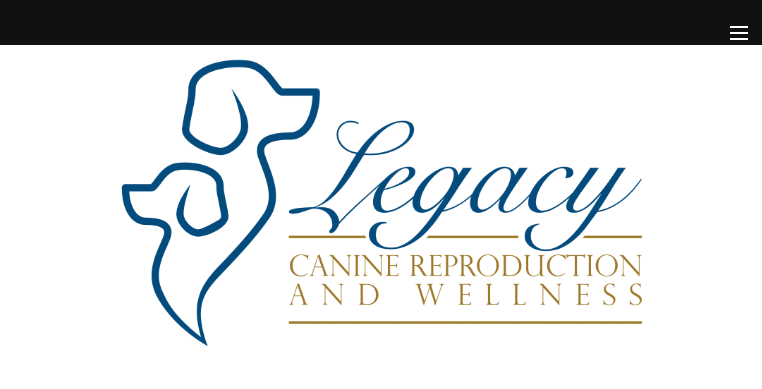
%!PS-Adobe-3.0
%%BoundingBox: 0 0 762 389
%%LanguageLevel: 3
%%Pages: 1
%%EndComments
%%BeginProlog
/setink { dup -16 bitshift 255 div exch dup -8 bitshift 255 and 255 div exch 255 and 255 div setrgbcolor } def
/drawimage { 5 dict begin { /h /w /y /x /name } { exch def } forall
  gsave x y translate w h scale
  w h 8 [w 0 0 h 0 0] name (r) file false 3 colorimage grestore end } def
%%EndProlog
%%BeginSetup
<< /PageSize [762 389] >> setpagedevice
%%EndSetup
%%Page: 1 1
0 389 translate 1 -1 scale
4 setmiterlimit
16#FFFFFF setink
0 0 762 389 rectfill
[
    [0 0 762 45 16#111111]
    [730 38 18 2 16#FFFFFF]
    [730 32 18 2 16#FFFFFF]
    [730 26 18 2 16#FFFFFF]
] { aload pop setink rectfill } forall
(img1.raw) 121 59 521 288 drawimage
showpage
%%EOF
